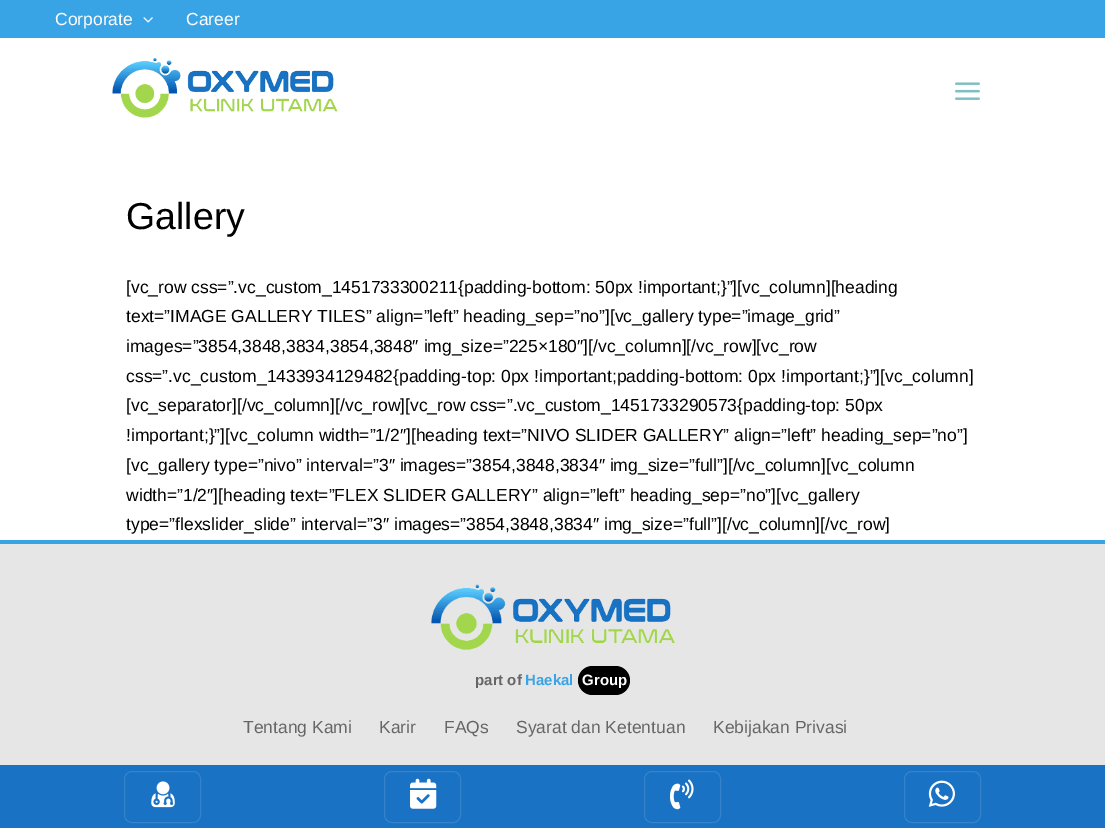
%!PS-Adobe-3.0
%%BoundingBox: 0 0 1105 828
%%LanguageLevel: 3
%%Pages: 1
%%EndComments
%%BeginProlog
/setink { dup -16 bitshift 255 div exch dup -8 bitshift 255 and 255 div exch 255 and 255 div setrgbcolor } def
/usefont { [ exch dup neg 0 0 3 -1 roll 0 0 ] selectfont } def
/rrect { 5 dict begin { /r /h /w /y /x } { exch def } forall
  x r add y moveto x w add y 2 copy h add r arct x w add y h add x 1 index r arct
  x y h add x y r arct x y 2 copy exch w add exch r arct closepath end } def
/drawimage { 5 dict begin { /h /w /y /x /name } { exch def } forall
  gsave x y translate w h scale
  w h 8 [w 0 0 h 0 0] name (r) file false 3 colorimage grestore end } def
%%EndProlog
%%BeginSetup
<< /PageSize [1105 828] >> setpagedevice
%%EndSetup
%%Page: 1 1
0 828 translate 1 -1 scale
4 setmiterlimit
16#FFFFFF setink
0 0 1105 828 rectfill
16#39A4E5 setink
0 0 1105 38 rectfill
/LiberationSans-Regular 17.5 usefont
16#FFFFFF setink
55 25 moveto (Corporate) show
(img1.raw) 143 17 10 6 drawimage
186 25 moveto (Career) show
(img2.raw) 112 57 226 61 drawimage
(img3.raw) 955 82 25 18 drawimage
/LiberationSans-Regular 37.5 usefont
16#000000 setink
126 229 moveto (Gallery) show
/LiberationSans-Regular 17.5 usefont
[
    [([vc_row css=”.vc_custom_1451733300211{padding-bottom: 50px !important;}”][vc_column][heading) 126 293]
    [(text=”IMAGE GALLERY TILES” align=”left” heading_sep=”no”][vc_gallery type=”image_grid”) 126 322]
    [(images=”3854,3848,3834,3854,3848″ img_size=”225×180″][/vc_column][/vc_row][vc_row) 126 352]
    [(css=”.vc_custom_1433934129482{padding-top: 0px !important;padding-bottom: 0px !important;}”][vc_column]) 126 382]
    [([vc_separator][/vc_column][/vc_row][vc_row css=”.vc_custom_1451733290573{padding-top: 50px) 126 411]
    [(!important;}”][vc_column width=”1/2″][heading text=”NIVO SLIDER GALLERY” align=”left” heading_sep=”no”]) 126 441]
    [([vc_gallery type=”nivo” interval=”3″ images=”3854,3848,3834″ img_size=”full”][/vc_column][vc_column) 126 471]
    [(width=”1/2″][heading text=”FLEX SLIDER GALLERY” align=”left” heading_sep=”no”][vc_gallery) 126 501]
    [(type=”flexslider_slide” interval=”3″ images=”3854,3848,3834″ img_size=”full”][/vc_column][/vc_row]) 126 530]
] { aload pop moveto show } forall
16#39A4E5 setink
0 540 1105 4 rectfill
16#E6E6E6 setink
0 544 1105 221 rectfill
(img4.raw) 431 584 244 66 drawimage
/LiberationSans-Bold 15 usefont
16#666666 setink
475 685 moveto (part of) show
16#39A4E5 setink
525 685 moveto (Haekal) show
16#000000 setink
578 666 52 29 14.5 rrect fill
16#FFFFFF setink
582 685 moveto (Group) show
/LiberationSans-Regular 17.5 usefont
16#666666 setink
[
    [(Tentang Kami) 243 733]
    [(Karir) 379 733]
    [(FAQs) 444 733]
    [(Syarat dan Ketentuan) 516 733]
    [(Kebijakan Privasi) 713 733]
] { aload pop moveto show } forall
16#1972C3 setink
0 765 1105 63 rectfill
16#3583CA setink
124.5 771.5 76 51 7.5 rrect stroke
(img5.raw) 151 781 24 27 drawimage
384.5 771.5 76 51 7.5 rrect stroke
(img6.raw) 410 778 27 31 drawimage
644.5 771.5 76 51 7.5 rrect stroke
(img7.raw) 670 779 24 31 drawimage
904.5 771.5 76 51 7.5 rrect stroke
(img8.raw) 928 780 27 27 drawimage
showpage
%%EOF
